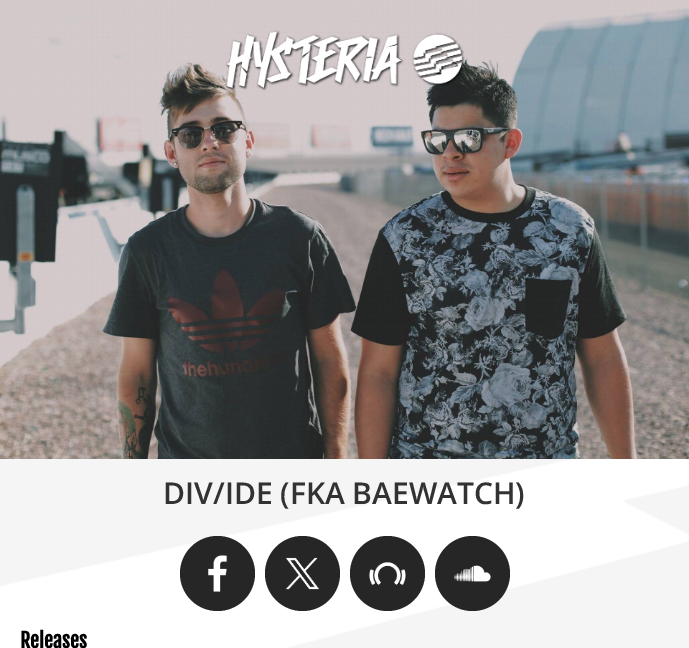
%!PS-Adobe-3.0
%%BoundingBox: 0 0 689 648
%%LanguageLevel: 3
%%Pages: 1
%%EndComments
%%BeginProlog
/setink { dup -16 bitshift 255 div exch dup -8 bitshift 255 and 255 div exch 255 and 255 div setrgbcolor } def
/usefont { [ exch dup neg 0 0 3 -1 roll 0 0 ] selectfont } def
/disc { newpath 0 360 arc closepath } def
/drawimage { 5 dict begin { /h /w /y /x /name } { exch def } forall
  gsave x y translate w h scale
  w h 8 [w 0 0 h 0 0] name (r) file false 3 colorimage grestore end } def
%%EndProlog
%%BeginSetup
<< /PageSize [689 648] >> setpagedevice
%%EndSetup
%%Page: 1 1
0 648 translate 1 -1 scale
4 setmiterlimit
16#FFFFFF setink
0 0 689 648 rectfill
(img1.raw) 0 459 689 189 drawimage
(img3.raw) 0 0 689 459 drawimage
(img2.raw) 225 30 240 61 drawimage
/OpenSans-SemiBold 30 usefont
16#323232 setink
163 504 moveto (DIV/IDE \(FKA BAEWATCH\)) show
16#262626 setink
217.5 573.5 37.5 disc fill
(img4.raw) 208 555 20 37 drawimage
302.5 573.5 37.5 disc fill
(img5.raw) 285 557 35 33 drawimage
387.5 573.5 37.5 disc fill
(img6.raw) 369 562 37 23 drawimage
472.5 573.5 37.5 disc fill
(img7.raw) 454 565 37 17 drawimage
/FjallaOne-Bold 20 usefont
16#000000 setink
20 648 moveto (Releases) show
showpage
%%EOF
